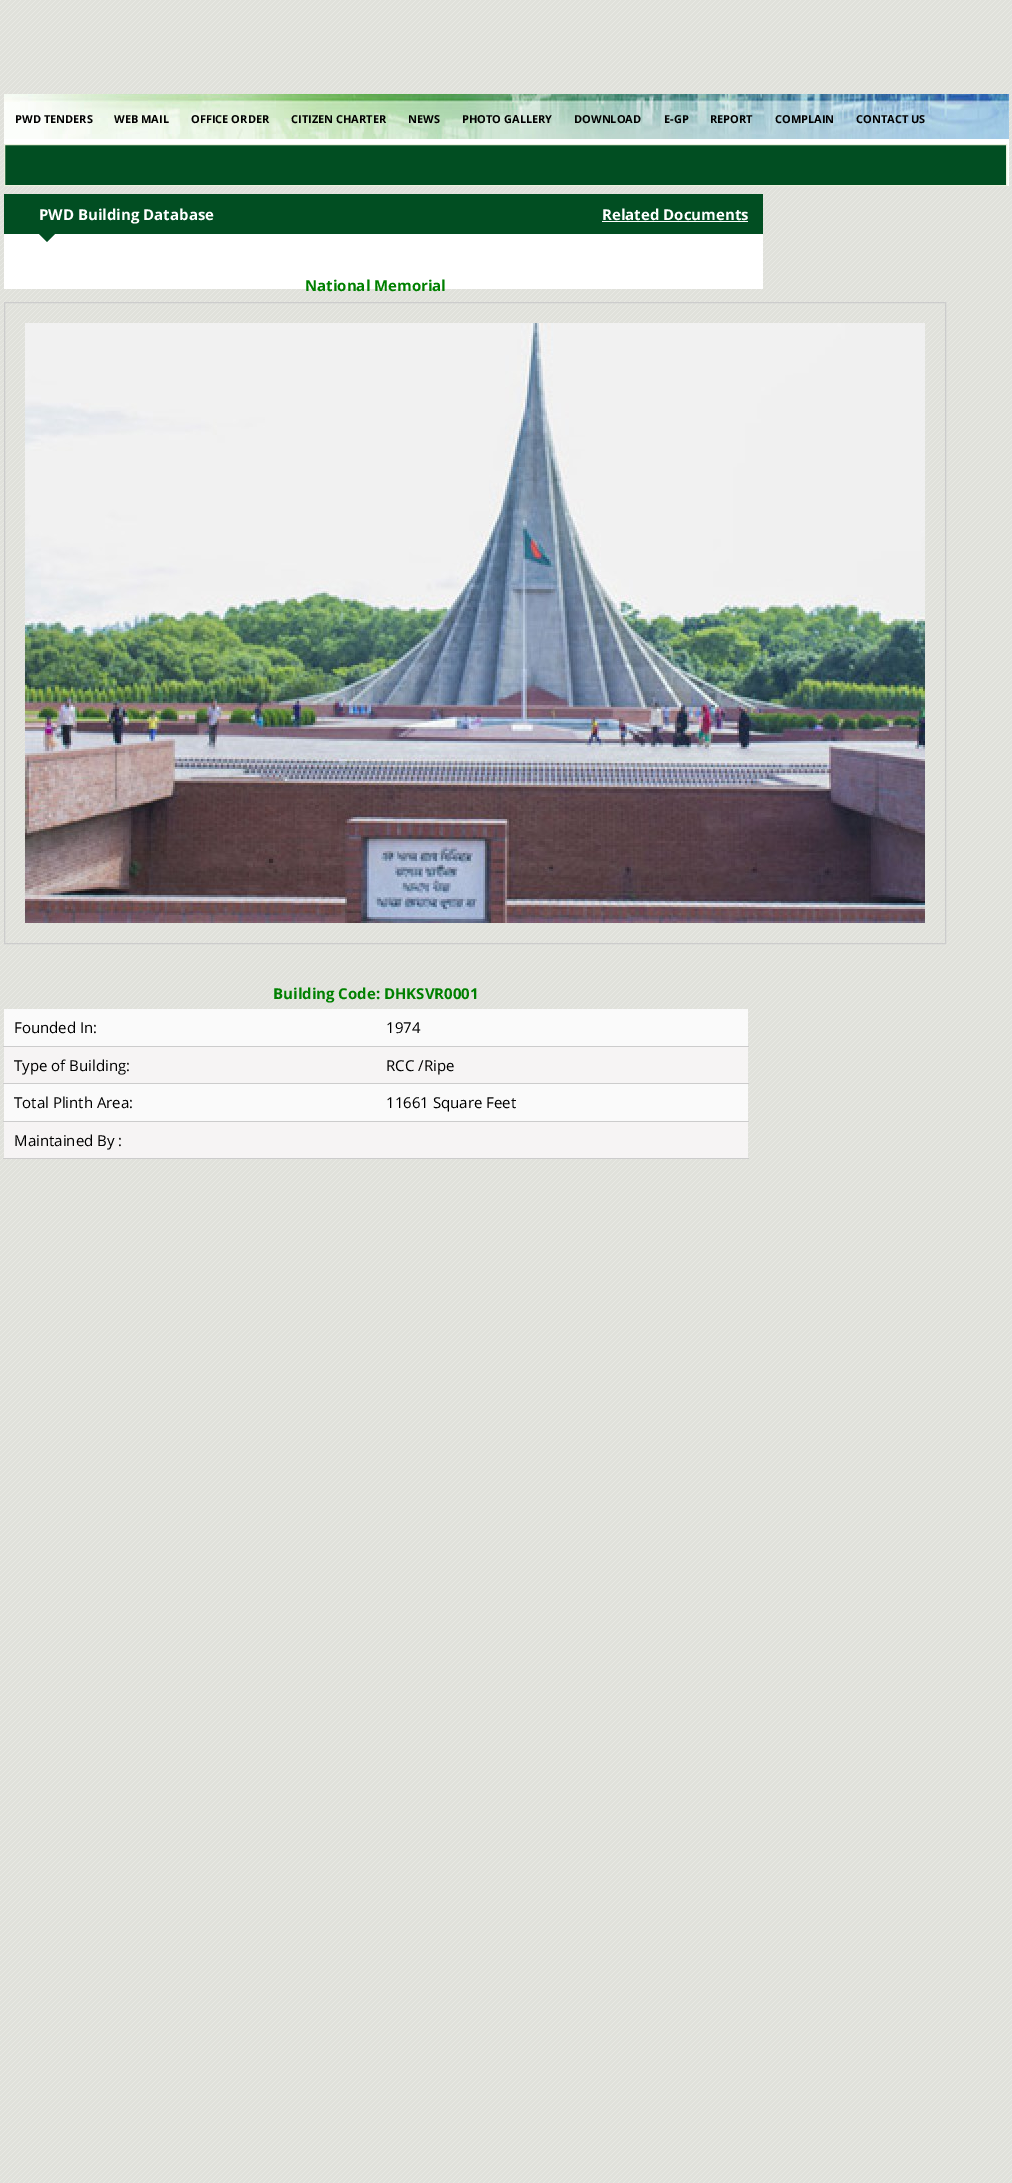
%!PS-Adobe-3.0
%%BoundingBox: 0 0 1012 2183
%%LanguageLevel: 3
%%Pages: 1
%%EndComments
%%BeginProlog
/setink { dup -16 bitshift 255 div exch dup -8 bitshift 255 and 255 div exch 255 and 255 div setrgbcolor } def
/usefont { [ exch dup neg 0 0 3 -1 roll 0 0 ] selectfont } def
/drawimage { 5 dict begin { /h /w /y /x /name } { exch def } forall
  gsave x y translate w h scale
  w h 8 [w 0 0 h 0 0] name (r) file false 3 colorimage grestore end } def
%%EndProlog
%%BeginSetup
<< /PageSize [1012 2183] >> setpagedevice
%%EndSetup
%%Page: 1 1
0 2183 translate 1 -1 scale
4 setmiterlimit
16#E0E1DB setink
0 0 1012 2183 rectfill
(img1.raw) 0 0 1012 2183 drawimage
(img2.raw) 4 94 1005 45 drawimage
/OpenSans-Bold 11 usefont
16#000000 setink
[
    [(PWD TENDERS) 15 123]
    [(WEB MAIL) 114 123]
    [(OFFICE ORDER) 191 123]
    [(CITIZEN CHARTER) 291 123]
    [(NEWS) 408 123]
    [(PHOTO GALLERY) 462 123]
    [(DOWNLOAD) 574 123]
    [(E-GP) 664 123]
    [(REPORT) 710 123]
    [(COMPLAIN) 775 123]
    [(CONTACT US) 856 123]
] { aload pop moveto show } forall
16#FFFFFF setink
4 139 1005 47 rectfill
16#014E22 setink
4.5 144.5 moveto 1006.5 144.5 lineto 1006.5 185.5 lineto 4.5 185.5 lineto closepath gsave fill grestore
16#EBF1DE setink
stroke
16#014E22 setink
4 194 759 40 rectfill
/OpenSans-Bold 15 usefont
16#FFFFFF setink
39 220 moveto (PWD Building Database) show
602 220 moveto (Related Documents) show
602 221 146 1 rectfill
4 234 759 55 rectfill
16#014E22 setink
39 234 moveto 55 234 lineto 47 242 lineto closepath fill
16#008000 setink
305 291 moveto (National Memorial) show
16#CCCCCC setink
4.5 302.5 941 641 rectstroke
(img3.raw) 25 323 900 600 drawimage
16#008000 setink
273 999 moveto (Building Code: DHKSVR0001) show
16#FAFAFA setink
4 1009 744 37 rectfill
16#CCCCCC setink
3 1046 746 1 rectfill
/OpenSans-Regular 15 usefont
16#000000 setink
14 1033 moveto (Founded In:) show
386 1033 moveto (1974) show
16#F6F4F4 setink
4 1047 744 36 rectfill
16#CCCCCC setink
3 1083 746 1 rectfill
16#000000 setink
14 1071 moveto (Type of Building:) show
386 1071 moveto (RCC /Ripe) show
16#FAFAFA setink
4 1084 744 37 rectfill
16#CCCCCC setink
3 1121 746 1 rectfill
16#000000 setink
14 1108 moveto (Total Plinth Area:) show
386 1108 moveto (11661 Square Feet) show
16#F6F4F4 setink
4 1122 744 36 rectfill
16#CCCCCC setink
3 1158 746 1 rectfill
16#000000 setink
14 1146 moveto (Maintained By :) show
showpage
%%EOF
